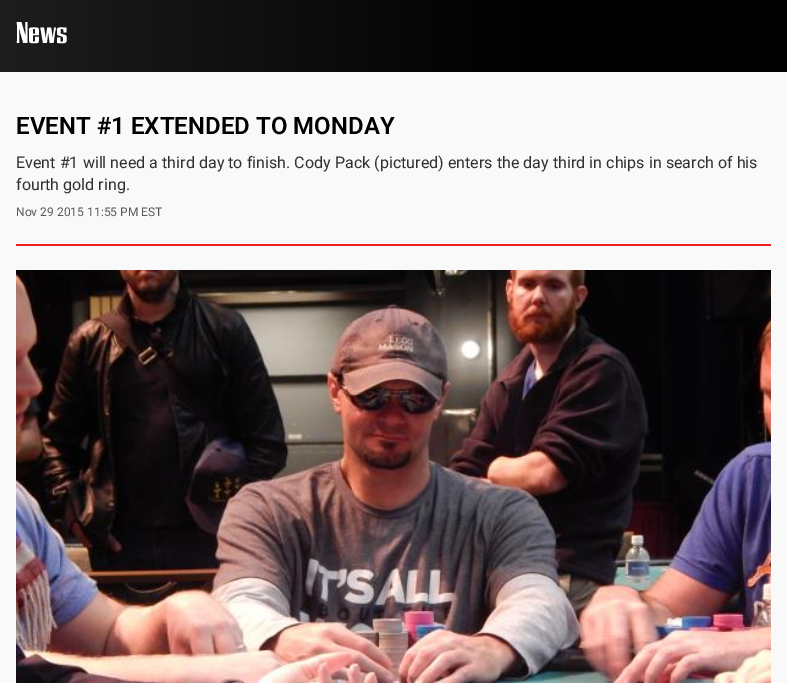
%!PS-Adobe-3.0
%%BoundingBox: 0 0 787 683
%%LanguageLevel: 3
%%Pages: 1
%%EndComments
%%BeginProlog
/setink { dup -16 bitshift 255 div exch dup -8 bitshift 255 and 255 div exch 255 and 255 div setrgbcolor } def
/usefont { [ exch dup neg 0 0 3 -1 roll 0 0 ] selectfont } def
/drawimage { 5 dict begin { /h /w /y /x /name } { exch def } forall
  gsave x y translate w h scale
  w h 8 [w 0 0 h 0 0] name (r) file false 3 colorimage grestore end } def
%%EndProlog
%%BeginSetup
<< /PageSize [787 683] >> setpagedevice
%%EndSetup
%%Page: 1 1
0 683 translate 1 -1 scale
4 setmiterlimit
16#F9F9F9 setink
0 0 787 683 rectfill
gsave 0 0 moveto 787 0 lineto 787 72 lineto 0 72 lineto closepath clip newpath
<< /ShadingType 2 /ColorSpace /DeviceRGB /Coords [787 36 0 36] /Extend [true true] /Function << /FunctionType 3 /Domain [0 1] /Functions [<< /FunctionType 2 /Domain [0 1] /C0 [0 0 0] /C1 [0 0 0] /N 1 >> << /FunctionType 2 /Domain [0 1] /C0 [0 0 0] /C1 [0.114 0.114 0.114] /N 1 >>] /Bounds [0.3] /Encode [0 1 0 1] >> >> shfill grestore
/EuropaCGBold-Bold 30 usefont
16#FFFFFF setink
16 43 moveto (News) show
16#ED1C23 setink
16 244 755 2 rectfill
/Roboto-SemiBold 24 usefont
16#000000 setink
16 134 moveto 0.04 0 (EVENT #1 EXTENDED TO MONDAY) ashow
/Roboto-Regular 16 usefont
16#303030 setink
16 168 moveto 0.04 0 (Event #1 will need a third day to finish. Cody Pack \(pictured\) enters the day third in chips in search of his) ashow
16 190 moveto 0.04 0 (fourth gold ring.) ashow
/Roboto-Regular 12 usefont
16#595959 setink
16 216 moveto 0.04 0 (Nov 29 2015 11:55 PM EST) ashow
(img1.raw) 16 270 755 413 drawimage
showpage
%%EOF
